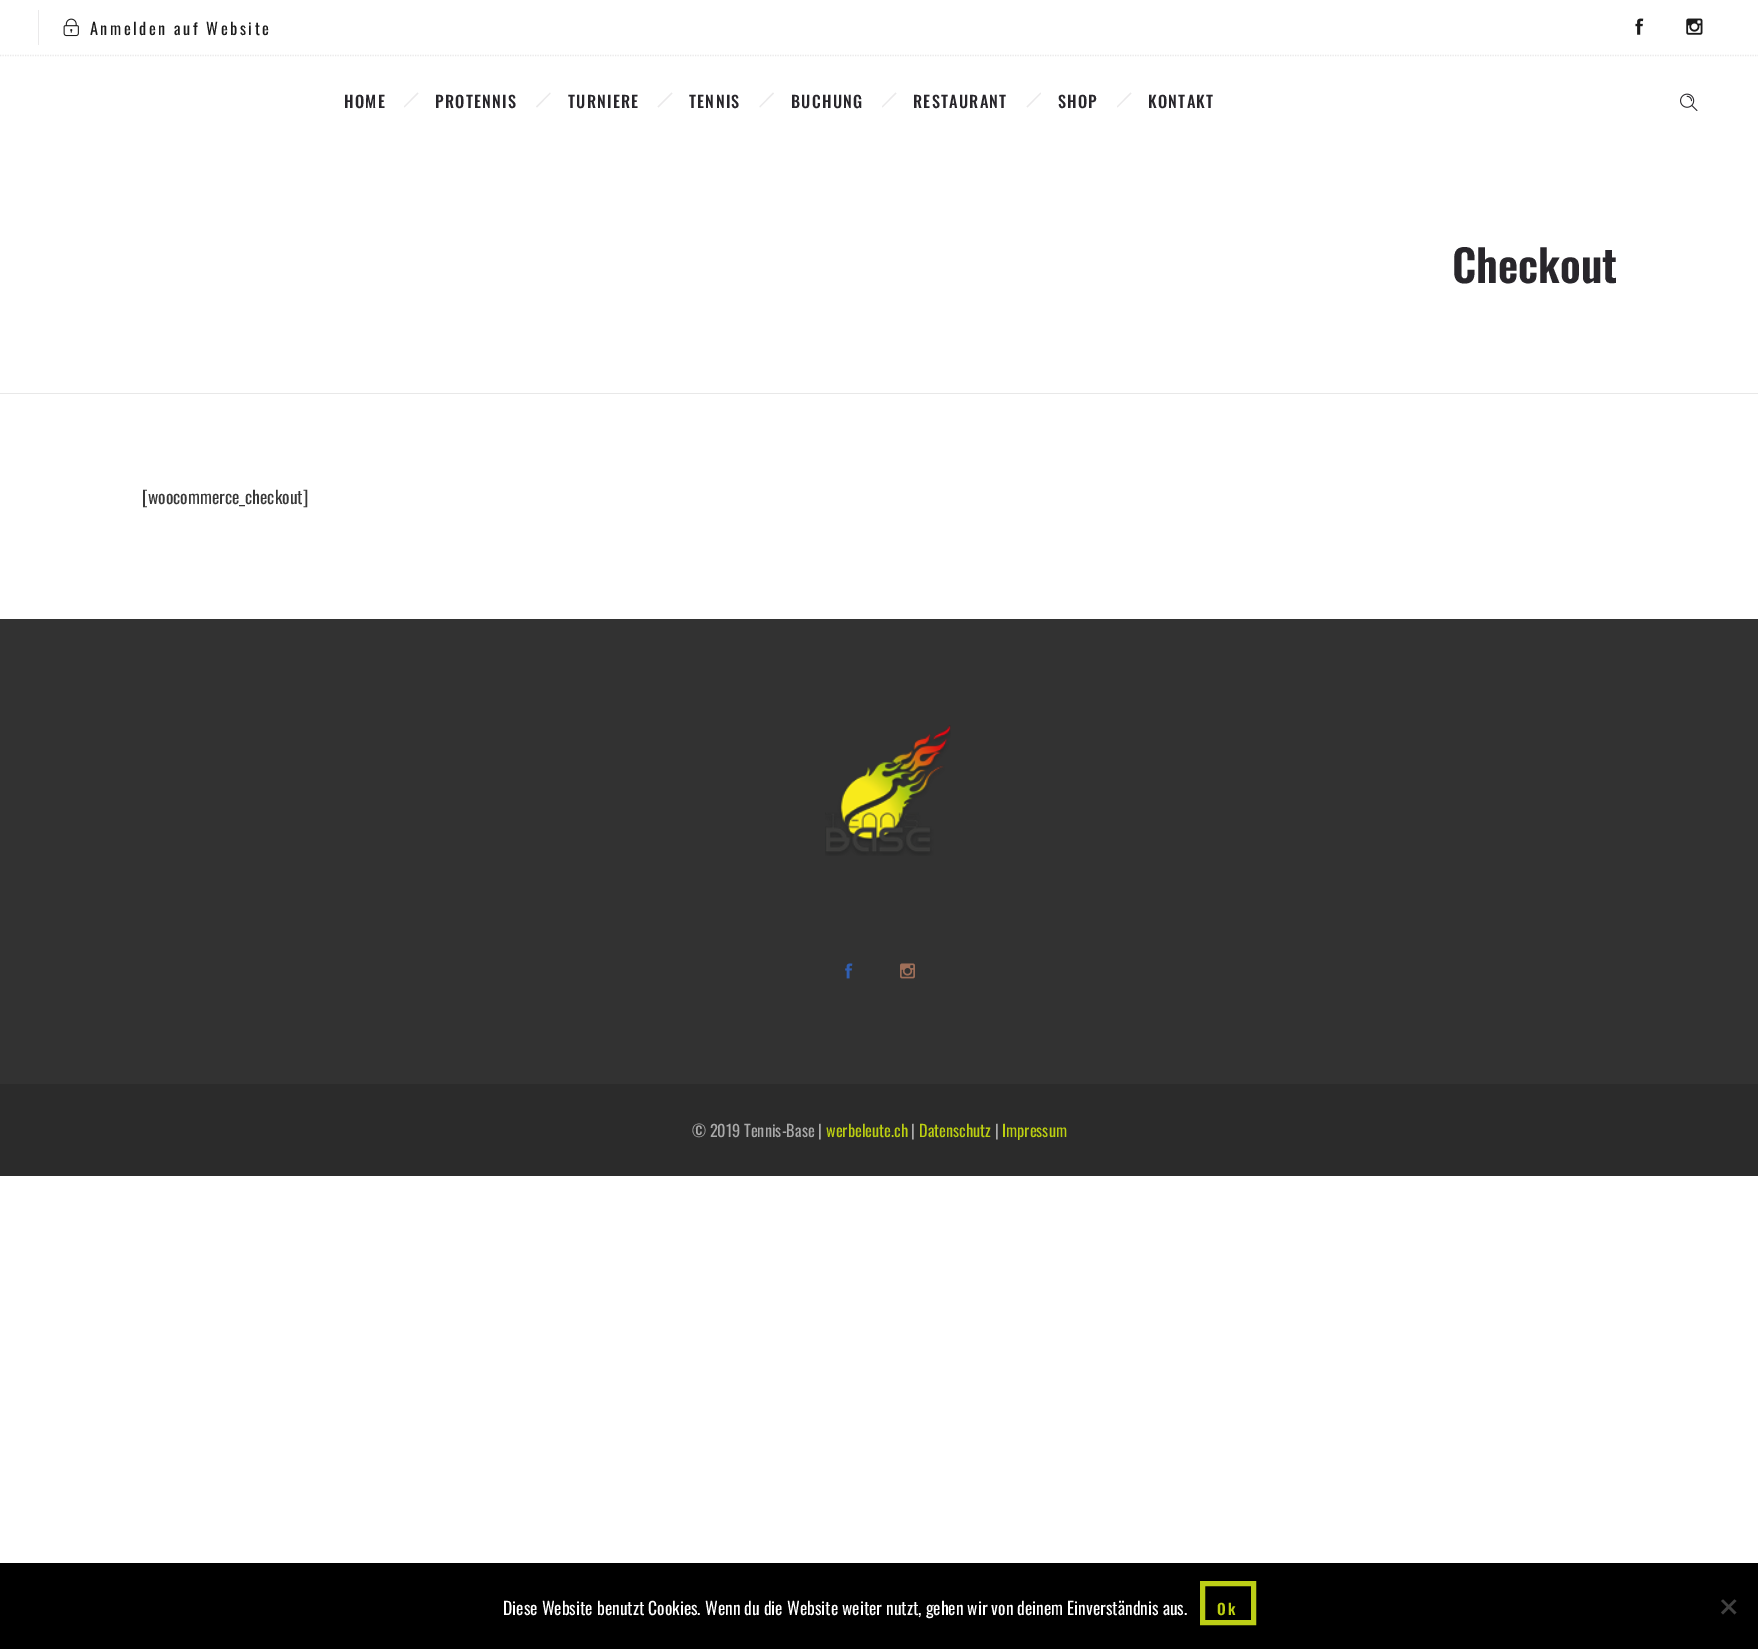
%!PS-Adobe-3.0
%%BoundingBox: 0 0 1758 1649
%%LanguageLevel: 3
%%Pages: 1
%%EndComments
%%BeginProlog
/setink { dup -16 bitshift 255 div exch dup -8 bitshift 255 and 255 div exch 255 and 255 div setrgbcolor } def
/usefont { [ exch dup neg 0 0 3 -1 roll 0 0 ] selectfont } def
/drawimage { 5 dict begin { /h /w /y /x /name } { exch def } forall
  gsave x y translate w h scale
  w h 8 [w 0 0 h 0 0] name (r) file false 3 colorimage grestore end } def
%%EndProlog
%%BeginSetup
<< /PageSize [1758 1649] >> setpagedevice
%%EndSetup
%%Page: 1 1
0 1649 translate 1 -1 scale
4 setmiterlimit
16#FFFFFF setink
0 0 1758 1649 rectfill
16#EAE9EA setink
1.2 setlinewidth
[1.25 1.25] 0 setdash
0 55.5 moveto 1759 55.5 lineto stroke
38 10 1 35 rectfill
(img1.raw) 63 18 16 19 drawimage
/Oswald-Regular 16.25 usefont
16#1B1B1B setink
90 35 moveto 2.5 0 (Anmelden auf Website) ashow
(img2.raw) 1635 18 9 17 drawimage
(img3.raw) 1686 18 17 17 drawimage
/Oswald-Medium 16.25 usefont
16#28262B setink
344 108 moveto 1.25 0 (HOME) ashow
16#EAE9EA setink
417.5 92.5 moveto 418.5 93.5 lineto 404.5 107.5 lineto 404 106.5 lineto closepath fill
16#28262B setink
435 108 moveto 1.25 0 (PROTENNIS) ashow
16#EAE9EA setink
550 92.5 moveto 550.5 93.5 lineto 537 107.5 lineto 536 106.5 lineto closepath fill
16#28262B setink
568 108 moveto 1.25 0 (TURNIERE) ashow
16#EAE9EA setink
671.5 92.5 moveto 672.5 93.5 lineto 658.5 107.5 lineto 657.5 106.5 lineto closepath fill
16#28262B setink
689 108 moveto 1.25 0 (TENNIS) ashow
16#EAE9EA setink
773 92.5 moveto 774 93.5 lineto 760 107.5 lineto 759.5 106.5 lineto closepath fill
16#28262B setink
791 108 moveto 1.25 0 (BUCHUNG) ashow
16#EAE9EA setink
895.5 92.5 moveto 896.5 93.5 lineto 882.5 107.5 lineto 882 106.5 lineto closepath fill
16#28262B setink
913 108 moveto 1.25 0 (RESTAURANT) ashow
16#EAE9EA setink
1040.5 92.5 moveto 1041 93.5 lineto 1027.5 107.5 lineto 1026.5 106.5 lineto closepath fill
16#28262B setink
1058 108 moveto 1.25 0 (SHOP) ashow
16#EAE9EA setink
1130.5 92.5 moveto 1131.5 93.5 lineto 1117.5 107.5 lineto 1117 106.5 lineto closepath fill
16#28262B setink
1148 108 moveto 1.25 0 (KONTAKT) ashow
(img4.raw) 1680 93 18 18 drawimage
/Oswald-SemiBold 44 usefont
1452 283 moveto (Checkout) show
16#E8E8E8 setink
0 393 1758 1 rectfill
/Oswald-Regular 17.5 usefont
16#383838 setink
142 504 moveto ([woocommerce_checkout]) show
16#323232 setink
0 619 1758 465 rectfill
(img5.raw) 825 725 126 131 drawimage
(img6.raw) 845 963 8 16 drawimage
(img7.raw) 900 963 15 16 drawimage
16#2B2B2B setink
0 1084 1758 92 rectfill
/Oswald-Regular 16.25 usefont
16#AAAAAA setink
692 1137 moveto (© 2019 Tennis-Base |) show
16#BCCF11 setink
826 1137 moveto (werbeleute.ch) show
16#AAAAAA setink
911 1137 moveto (|) show
16#BCCF11 setink
919 1137 moveto (Datenschutz) show
16#AAAAAA setink
995 1137 moveto (|) show
16#BCCF11 setink
1002 1137 moveto (Impressum) show
16#000000 setink
0 1563 1758 86 rectfill
/Oswald-Regular 17.5 usefont
16#FFFFFF setink
503 1615 moveto (Diese Website benutzt Cookies. Wenn du die Website weiter nutzt, gehen wir von deinem Einverständnis aus.) show
16#BCCF16 setink
5 setlinewidth
[] 0 setdash
1202.5 1583.5 51 39 rectstroke
/Oswald-SemiBold 15 usefont
16#BCCF11 setink
1217 1615 moveto 2.5 0 (Ok) ashow
16#404040 setink
1734.5 1599.5 moveto 1736.5 1601 lineto 1723 1614.5 lineto 1721 1612.5 lineto closepath fill
1721 1601 moveto 1723 1599.5 lineto 1736.5 1612.5 lineto 1734.5 1614.5 lineto closepath fill
showpage
%%EOF
